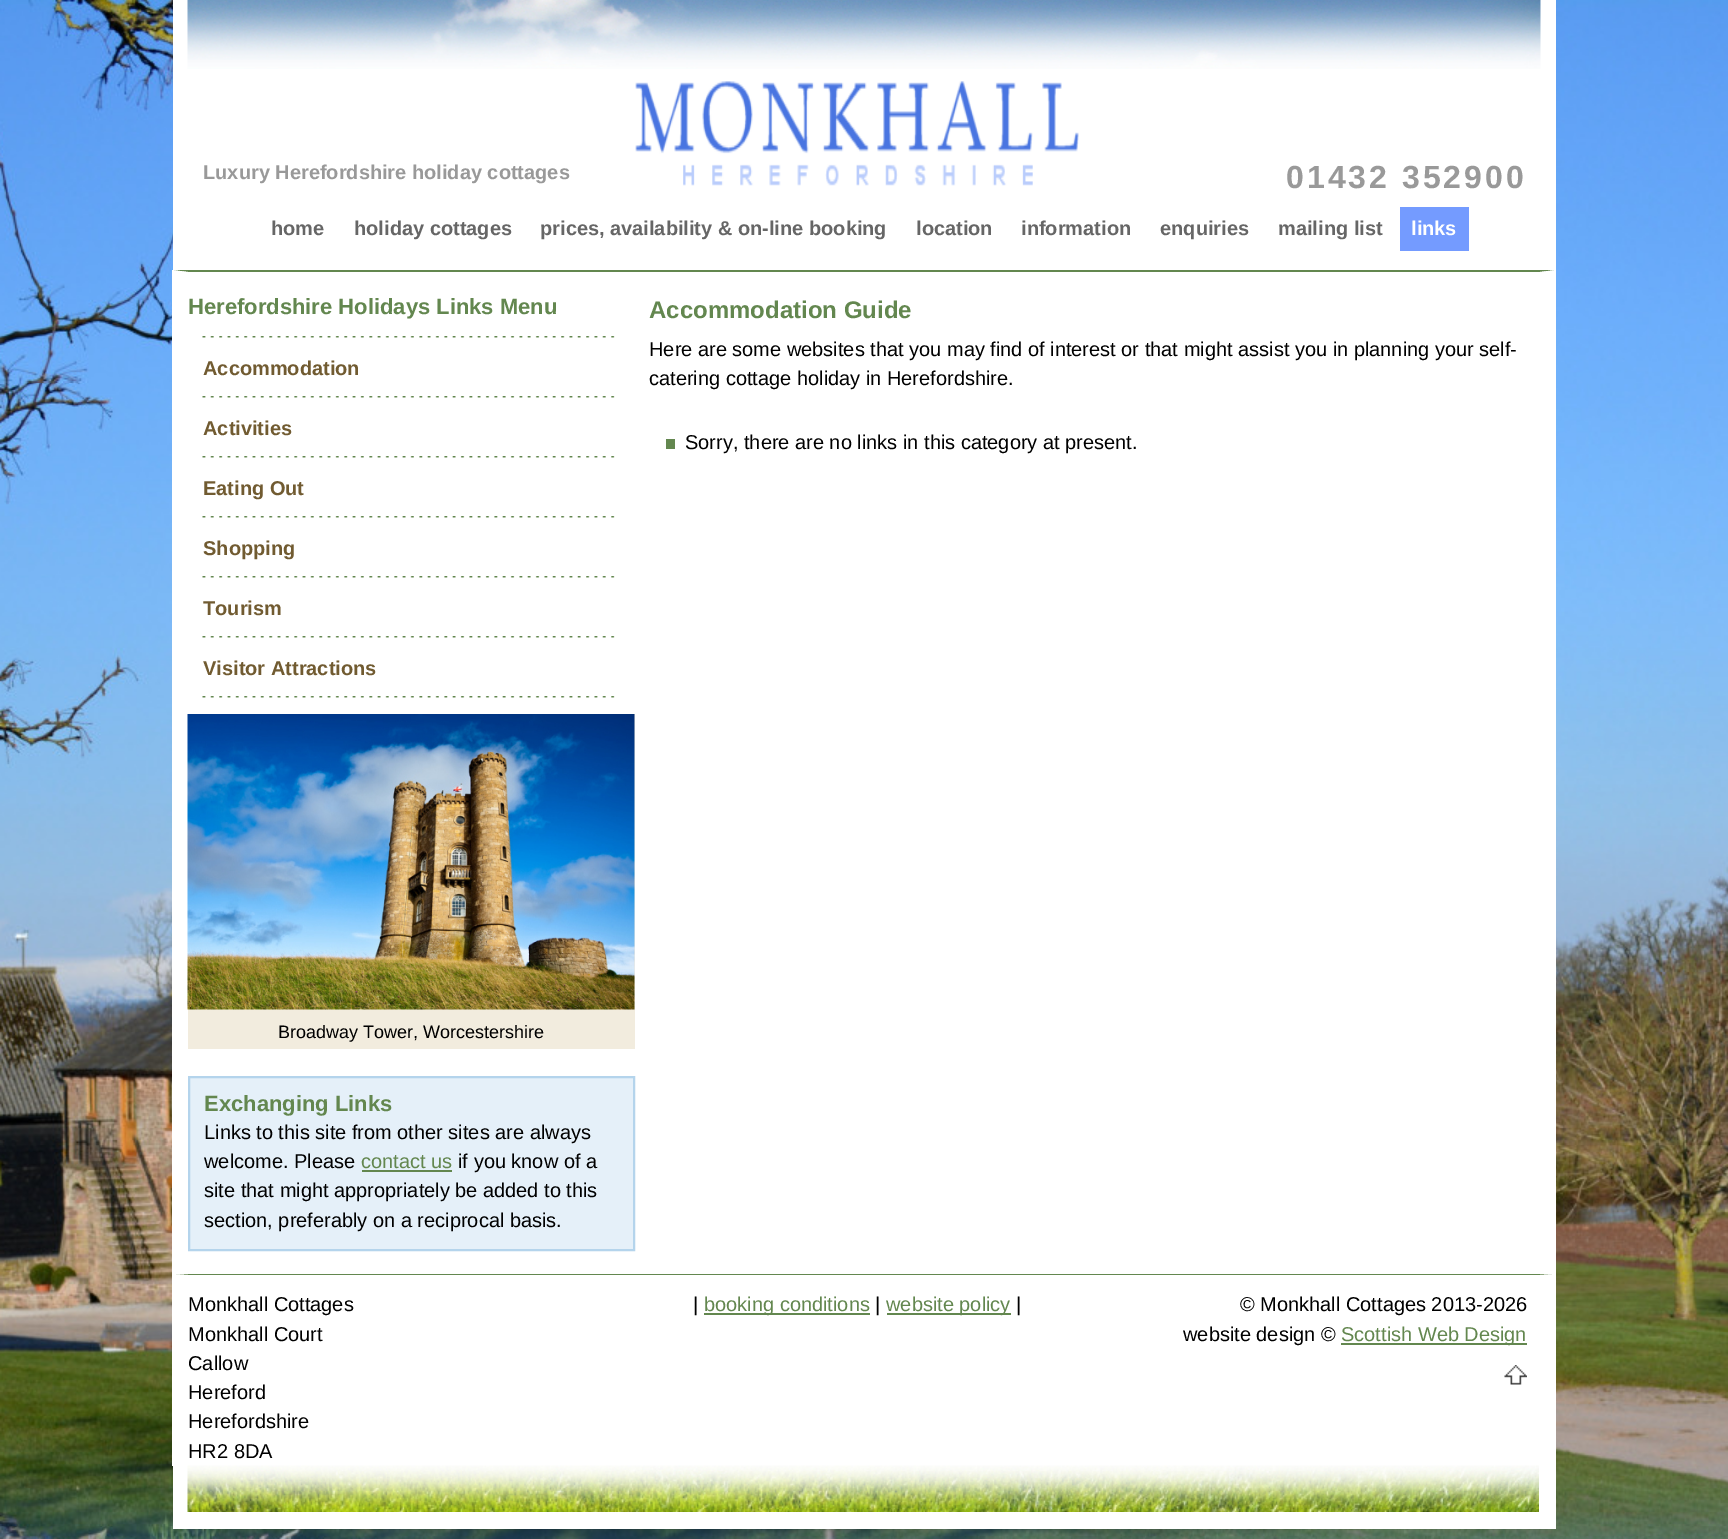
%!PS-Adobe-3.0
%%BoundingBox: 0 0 1728 1539
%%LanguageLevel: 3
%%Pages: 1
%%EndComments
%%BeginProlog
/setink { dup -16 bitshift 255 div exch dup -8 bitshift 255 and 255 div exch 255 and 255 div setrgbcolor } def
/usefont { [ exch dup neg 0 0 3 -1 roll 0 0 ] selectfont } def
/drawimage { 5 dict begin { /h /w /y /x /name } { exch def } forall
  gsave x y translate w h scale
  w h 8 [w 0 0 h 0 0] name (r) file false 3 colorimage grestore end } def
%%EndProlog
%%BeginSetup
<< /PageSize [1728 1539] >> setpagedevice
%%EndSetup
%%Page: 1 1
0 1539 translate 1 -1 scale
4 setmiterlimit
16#FFFFFF setink
0 0 1728 1539 rectfill
(img1.raw) 0 0 1728 1539 drawimage
173 0 1383 1529 rectfill
(img2.raw) 187 0 1354 69 drawimage
/LiberationSans-Bold 20 usefont
16#999999 setink
203 179 moveto (Luxury Herefordshire holiday cottages) show
(img3.raw) 635 81 444 105 drawimage
/LiberationSans-Bold 32 usefont
1286 188 moveto 3 0 (01432 352900) ashow
/LiberationSans-Bold 20 usefont
16#666666 setink
[
    [(home) 271 235]
    [(holiday cottages) 354 235]
    [(prices, availability & on-line booking) 540 235]
    [(location) 916 235]
    [(information) 1021 235]
    [(enquiries) 1160 235]
    [(mailing list) 1278 235]
] { aload pop moveto show } forall
16#749BFF setink
1400 207 69 44 rectfill
16#FFFFFF setink
1411 235 moveto (links) show
16#63874F setink
172 270 moveto 1556 270 lineto 1540 272 lineto 188 272 lineto closepath fill
16#FFFFFF setink
1556 270 moveto 1556 1274 lineto 1540 1274 lineto 1540 272 lineto closepath fill
172 1274 moveto 172 270 lineto 188 272 lineto 188 1274 lineto closepath fill
/LiberationSans-Bold 22 usefont
16#63874F setink
188 314 moveto (Herefordshire Holidays Links Menu) show
(img4.raw) 202 336 413 2 drawimage
/LiberationSans-Bold 20 usefont
16#715B31 setink
203 375 moveto (Accommodation) show
(img4.raw) 202 396 413 2 drawimage
203 435 moveto (Activities) show
(img4.raw) 202 456 413 2 drawimage
203 495 moveto (Eating Out) show
(img4.raw) 202 516 413 2 drawimage
203 555 moveto (Shopping) show
(img4.raw) 202 576 413 2 drawimage
203 615 moveto (Tourism) show
(img4.raw) 202 636 413 2 drawimage
203 675 moveto (Visitor Attractions) show
(img4.raw) 202 696 413 2 drawimage
16#F2ECDE setink
188 714 447 335 rectfill
(img5.raw) 187 714 448 296 drawimage
/LiberationSans-Regular 18 usefont
16#000000 setink
278 1038 moveto (Broadway Tower, Worcestershire) show
16#E5F0F9 setink
189 1077 moveto 634 1077 lineto 634 1250 lineto 189 1250 lineto closepath gsave fill grestore
16#B4D4EC setink
2 setlinewidth
stroke
/LiberationSans-Bold 22 usefont
16#63874F setink
204 1111 moveto (Exchanging Links) show
/LiberationSans-Regular 20 usefont
16#000000 setink
204 1139 moveto (Links to this site from other sites are always) show
204 1168 moveto (welcome. Please) show
16#63874F setink
361 1168 moveto (contact us) show
362 1170 90 2 rectfill
16#000000 setink
[
    [(if you know of a) 458 1168]
    [(site that might appropriately be added to this) 204 1197]
    [(section, preferably on a reciprocal basis.) 204 1227]
] { aload pop moveto show } forall
/LiberationSans-Bold 24 usefont
16#63874F setink
649 318 moveto (Accommodation Guide) show
/LiberationSans-Regular 20 usefont
16#000000 setink
649 356 moveto (Here are some websites that you may find of interest or that might assist you in planning your self-) show
649 385 moveto (catering cottage holiday in Herefordshire.) show
16#63874F setink
666 439 9 10 rectfill
16#000000 setink
685 449 moveto (Sorry, there are no links in this category at present.) show
16#63874F setink
172 1274 moveto 1556 1274 lineto 1540 1275 lineto 188 1275 lineto closepath fill
16#FFFFFF setink
1556 1274 moveto 1556 1466 lineto 1540 1466 lineto 1540 1275 lineto closepath fill
172 1466 moveto 172 1274 lineto 188 1275 lineto 188 1466 lineto closepath fill
16#000000 setink
[
    [(Monkhall Cottages) 188 1311]
    [(Monkhall Court) 188 1341]
    [(Callow) 188 1370]
    [(Hereford) 188 1399]
    [(Herefordshire) 188 1428]
    [(HR2 8DA) 188 1458]
    [(|) 693 1311]
] { aload pop moveto show } forall
16#63874F setink
704 1313 166 2 rectfill
704 1311 moveto (booking conditions) show
16#000000 setink
875 1311 moveto (|) show
16#63874F setink
887 1313 124 2 rectfill
886 1311 moveto (website policy) show
16#000000 setink
[
    [(|) 1016 1311]
    [(© Monkhall Cottages 2013-2026) 1240 1311]
    [(website design ©) 1183 1341]
] { aload pop moveto show } forall
16#63874F setink
1341 1343 186 2 rectfill
1341 1341 moveto (Scottish Web Design) show
(img6.raw) 1504 1365 23 20 drawimage
(img7.raw) 187 1465 1352 47 drawimage
showpage
%%EOF
